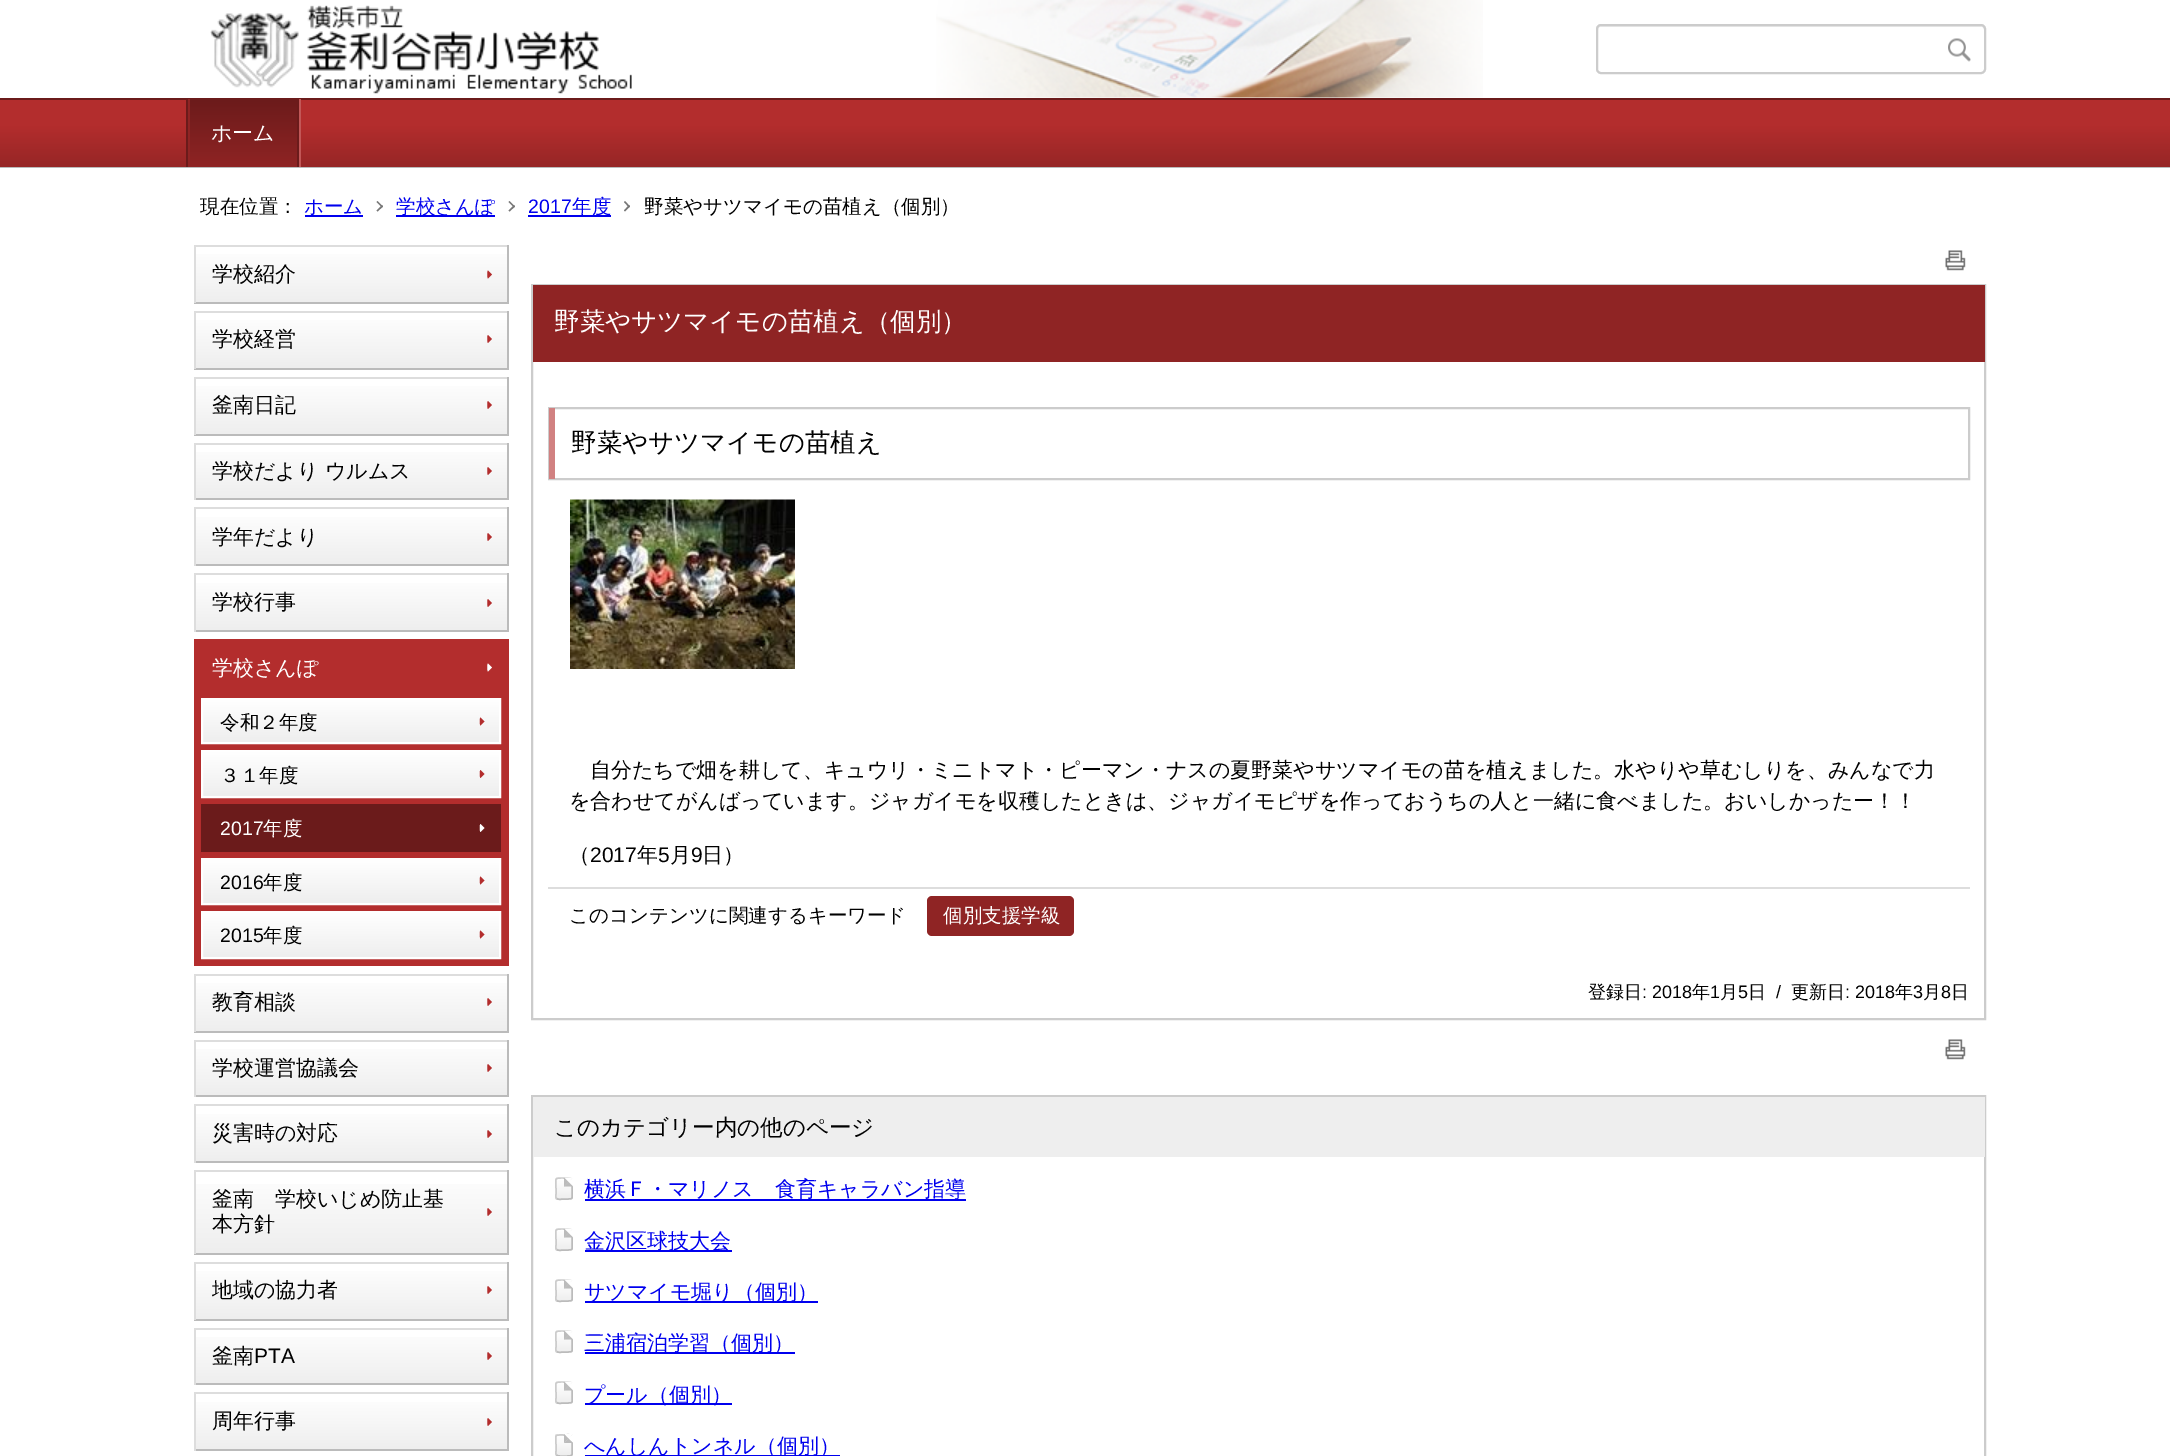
%!PS-Adobe-3.0
%%BoundingBox: 0 0 2170 1456
%%LanguageLevel: 3
%%Pages: 1
%%EndComments
%%BeginProlog
/setink { dup -16 bitshift 255 div exch dup -8 bitshift 255 and 255 div exch 255 and 255 div setrgbcolor } def
/usefont { [ exch dup neg 0 0 3 -1 roll 0 0 ] selectfont } def
/rrect { 5 dict begin { /r /h /w /y /x } { exch def } forall
  x r add y moveto x w add y 2 copy h add r arct x w add y h add x 1 index r arct
  x y h add x y r arct x y 2 copy exch w add exch r arct closepath end } def
/drawimage { 5 dict begin { /h /w /y /x /name } { exch def } forall
  gsave x y translate w h scale
  w h 8 [w 0 0 h 0 0] name (r) file false 3 colorimage grestore end } def
%%EndProlog
%%BeginSetup
<< /PageSize [2170 1456] >> setpagedevice
%%EndSetup
%%Page: 1 1
0 1456 translate 1 -1 scale
4 setmiterlimit
16#FFFFFF setink
0 0 2170 1456 rectfill
(img1.raw) 936 0 547 98 drawimage
(img2.raw) 210 5 422 89 drawimage
16#ECECEC setink
1600 27 moveto 1982 27 lineto 1983 27 1984 28 1984 30 curveto 1984 71 lineto 1985 71 1985 70 1985 69 curveto 1985 29 lineto 1985 27 1984 26 1982 26 curveto 1601 26 lineto 1599 26 1598 27 1598 29 curveto 1598 30 lineto 1598 28 1599 27 1600 27 curveto closepath fill
16#CCCCCC setink
2 setlinewidth
1597 25 388 48 4 rrect stroke
(img3.raw) 1948 38 23 24 drawimage
[
    [0 100 2170 26 16#B32D2D]
    [0 98 2170 2 16#6B1B1B]
    [0 167 2170 1 16#BBBBBB]
] { aload pop setink rectfill } forall
gsave 0 126 moveto 2170 126 lineto 2170 167 lineto 0 167 lineto closepath clip newpath
<< /ShadingType 2 /ColorSpace /DeviceRGB /Coords [1085 126 1085 167] /Extend [true true] /Function << /FunctionType 2 /Domain [0 1] /C0 [0.702 0.176 0.176] /C1 [0.588 0.149 0.149] /N 1 >> >> shfill grestore
16#C25757 setink
299 99 2 68 rectfill
16#6B1B1B setink
186 99 2 68 rectfill
gsave 190 100 moveto 297 100 lineto 297 167 lineto 190 167 lineto closepath clip newpath
<< /ShadingType 2 /ColorSpace /DeviceRGB /Coords [243 99 243 167] /Extend [true true] /Function << /FunctionType 2 /Domain [0 1] /C0 [0.42 0.106 0.106] /C1 [0.561 0.141 0.141] /N 1 >> >> shfill grestore
297 99 2 68 rectfill
16#8F2424 setink
188 99 2 68 rectfill
/WenQuanYiZenHei-Medium 21 usefont
16#FFFFFF setink
211 140 moveto (ホーム) show
/WenQuanYiZenHei-Medium 19.5 usefont
16#000000 setink
200 213 moveto (現在位置：) show
16#0000EE setink
304 213 moveto (ホーム) show
305 215 58 2 rectfill
16#777777 setink
377.5 201 moveto 383 206.5 lineto 382 207.5 lineto 376.5 202 lineto closepath fill
382 205 moveto 383 206.5 lineto 377.5 211.5 lineto 376.5 210.5 lineto closepath fill
16#0000EE setink
396 215 99 2 rectfill
396 213 moveto (学校さんぽ) show
16#777777 setink
509.5 201 moveto 515 206.5 lineto 514 207.5 lineto 508.5 202 lineto closepath fill
514 205 moveto 515 206.5 lineto 509.5 211.5 lineto 508.5 210.5 lineto closepath fill
/LiberationSans-Regular 19.5 usefont
16#0000EE setink
528 213 moveto (2017) show
528 215 83 2 rectfill
/WenQuanYiZenHei-Medium 19.5 usefont
572 213 moveto (年度) show
16#777777 setink
625 201 moveto 630 206.5 lineto 629 207.5 lineto 624 202 lineto closepath fill
629 205 moveto 630 206.5 lineto 625 211.5 lineto 624 210.5 lineto closepath fill
16#000000 setink
644 213 moveto (野菜やサツマイモの苗植え（個別）) show
gsave 196 254 moveto 507 254 lineto 507 302 lineto 196 302 lineto closepath clip newpath
<< /ShadingType 2 /ColorSpace /DeviceRGB /Coords [351 246 351 302] /Extend [true true] /Function << /FunctionType 2 /Domain [0 1] /C0 [1 1 1] /C1 [0.933 0.933 0.933] /N 1 >> >> shfill grestore
[
    [194 245 315 2 16#DDDDDD]
    [507 245 2 58 16#BBBBBB]
    [194 302 315 2 16#BBBBBB]
    [194 245 2 58 16#DDDDDD]
] { aload pop setink rectfill } forall
/WenQuanYiZenHei-Medium 21 usefont
16#000000 setink
212 281 moveto (学校紹介) show
16#B32D2D setink
492 274.5 moveto 488 278.5 lineto 487 277.5 487 271 488 270.5 curveto closepath fill
gsave 196 320 moveto 507 320 lineto 507 368 lineto 196 368 lineto closepath clip newpath
<< /ShadingType 2 /ColorSpace /DeviceRGB /Coords [351 312 351 368] /Extend [true true] /Function << /FunctionType 2 /Domain [0 1] /C0 [1 1 1] /C1 [0.933 0.933 0.933] /N 1 >> >> shfill grestore
[
    [194 311 315 2 16#DDDDDD]
    [507 311 2 58 16#BBBBBB]
    [194 368 315 2 16#BBBBBB]
    [194 311 2 58 16#DDDDDD]
] { aload pop setink rectfill } forall
16#000000 setink
212 346 moveto (学校経営) show
16#B32D2D setink
492 339 moveto 488 343 lineto 487 342 487 335.5 488 335 curveto closepath fill
gsave 196 386 moveto 507 386 lineto 507 434 lineto 196 434 lineto closepath clip newpath
<< /ShadingType 2 /ColorSpace /DeviceRGB /Coords [351 378 351 434] /Extend [true true] /Function << /FunctionType 2 /Domain [0 1] /C0 [1 1 1] /C1 [0.933 0.933 0.933] /N 1 >> >> shfill grestore
[
    [194 377 315 2 16#DDDDDD]
    [507 377 2 58 16#BBBBBB]
    [194 434 315 2 16#BBBBBB]
    [194 377 2 58 16#DDDDDD]
] { aload pop setink rectfill } forall
16#000000 setink
212 412 moveto (釜南日記) show
16#B32D2D setink
492 405 moveto 488 409 lineto 487 408 487 401.5 488 401 curveto closepath fill
gsave 196 452 moveto 507 452 lineto 507 498 lineto 196 498 lineto closepath clip newpath
<< /ShadingType 2 /ColorSpace /DeviceRGB /Coords [351 444 351 498] /Extend [true true] /Function << /FunctionType 2 /Domain [0 1] /C0 [1 1 1] /C1 [0.933 0.933 0.933] /N 1 >> >> shfill grestore
[
    [194 443 315 2 16#DDDDDD]
    [507 443 2 57 16#BBBBBB]
    [194 498 315 2 16#BBBBBB]
    [194 443 2 57 16#DDDDDD]
] { aload pop setink rectfill } forall
16#000000 setink
212 478 moveto (学校だより ウルムス) show
16#B32D2D setink
492 471 moveto 488 475 lineto 487 474 487 467.5 488 467 curveto closepath fill
gsave 196 517 moveto 507 517 lineto 507 564 lineto 196 564 lineto closepath clip newpath
<< /ShadingType 2 /ColorSpace /DeviceRGB /Coords [351 509 351 564] /Extend [true true] /Function << /FunctionType 2 /Domain [0 1] /C0 [1 1 1] /C1 [0.933 0.933 0.933] /N 1 >> >> shfill grestore
[
    [194 507 315 2 16#DDDDDD]
    [507 507 2 59 16#BBBBBB]
    [194 564 315 2 16#BBBBBB]
    [194 507 2 59 16#DDDDDD]
] { aload pop setink rectfill } forall
16#000000 setink
212 544 moveto (学年だより) show
16#B32D2D setink
492 537 moveto 488 541 lineto 487 540 487 533.5 488 533 curveto closepath fill
gsave 196 583 moveto 507 583 lineto 507 630 lineto 196 630 lineto closepath clip newpath
<< /ShadingType 2 /ColorSpace /DeviceRGB /Coords [351 575 351 630] /Extend [true true] /Function << /FunctionType 2 /Domain [0 1] /C0 [1 1 1] /C1 [0.933 0.933 0.933] /N 1 >> >> shfill grestore
[
    [194 573 315 2 16#DDDDDD]
    [507 573 2 59 16#BBBBBB]
    [194 630 315 2 16#BBBBBB]
    [194 573 2 59 16#DDDDDD]
] { aload pop setink rectfill } forall
16#000000 setink
212 609 moveto (学校行事) show
16#B32D2D setink
492 603 moveto 488 607 lineto 487 606 487 599.5 488 599 curveto closepath fill
194 639 315 327 rectfill
16#FFFFFF setink
212 675 moveto (学校さんぽ) show
492 667.5 moveto 488 671.5 lineto 487 670.5 487 664 488 663.5 curveto closepath fill
gsave 203 700 moveto 499 700 lineto 499 742 lineto 203 742 lineto closepath clip newpath
<< /ShadingType 2 /ColorSpace /DeviceRGB /Coords [351 699 351 743] /Extend [true true] /Function << /FunctionType 2 /Domain [0 1] /C0 [1 1 1] /C1 [0.933 0.933 0.933] /N 1 >> >> shfill grestore
202 699 298 44 rectstroke
/WenQuanYiZenHei-Medium 19.5 usefont
16#000000 setink
220 729 moveto (令和２年度) show
16#B32D2D setink
484.5 721.5 moveto 480.5 725.5 lineto 479.5 724.5 479.5 718 480.5 717.5 curveto closepath fill
gsave 203 752 moveto 499 752 lineto 499 796 lineto 203 796 lineto closepath clip newpath
<< /ShadingType 2 /ColorSpace /DeviceRGB /Coords [351 752 351 797] /Extend [true true] /Function << /FunctionType 2 /Domain [0 1] /C0 [1 1 1] /C1 [0.933 0.933 0.933] /N 1 >> >> shfill grestore
16#FFFFFF setink
202 751 298 46 rectstroke
16#000000 setink
220 782 moveto (３１年度) show
16#B32D2D setink
484.5 774 moveto 480.5 778 lineto 479.5 777 479.5 770.5 480.5 770 curveto closepath fill
16#6B1B1B setink
201 804 300 48 rectfill
/LiberationSans-Regular 19.5 usefont
16#FFFFFF setink
220 835 moveto (2017) show
/WenQuanYiZenHei-Medium 19.5 usefont
263 835 moveto (年度) show
484.5 828 moveto 480.5 832 lineto 479.5 831 479.5 824.5 480.5 824 curveto closepath fill
gsave 203 860 moveto 499 860 lineto 499 903 lineto 203 903 lineto closepath clip newpath
<< /ShadingType 2 /ColorSpace /DeviceRGB /Coords [351 860 351 903] /Extend [true true] /Function << /FunctionType 2 /Domain [0 1] /C0 [1 1 1] /C1 [0.933 0.933 0.933] /N 1 >> >> shfill grestore
202 859 298 45 rectstroke
/LiberationSans-Regular 19.5 usefont
16#000000 setink
220 889 moveto (2016) show
/WenQuanYiZenHei-Medium 19.5 usefont
263 889 moveto (年度) show
16#B32D2D setink
484.5 880.5 moveto 480.5 884.5 lineto 479.5 883.5 479.5 877 480.5 876.5 curveto closepath fill
gsave 203 913 moveto 499 913 lineto 499 957 lineto 203 957 lineto closepath clip newpath
<< /ShadingType 2 /ColorSpace /DeviceRGB /Coords [351 912 351 957] /Extend [true true] /Function << /FunctionType 2 /Domain [0 1] /C0 [1 1 1] /C1 [0.933 0.933 0.933] /N 1 >> >> shfill grestore
16#FFFFFF setink
202 912 298 46 rectstroke
/LiberationSans-Regular 19.5 usefont
16#000000 setink
220 942 moveto (2015) show
/WenQuanYiZenHei-Medium 19.5 usefont
263 942 moveto (年度) show
16#B32D2D setink
484.5 934.5 moveto 480.5 938.5 lineto 479.5 937.5 479.5 931 480.5 930.5 curveto closepath fill
gsave 196 983 moveto 507 983 lineto 507 1031 lineto 196 1031 lineto closepath clip newpath
<< /ShadingType 2 /ColorSpace /DeviceRGB /Coords [351 975 351 1031] /Extend [true true] /Function << /FunctionType 2 /Domain [0 1] /C0 [1 1 1] /C1 [0.933 0.933 0.933] /N 1 >> >> shfill grestore
[
    [194 974 315 2 16#DDDDDD]
    [507 974 2 58 16#BBBBBB]
    [194 1031 315 2 16#BBBBBB]
    [194 974 2 58 16#DDDDDD]
] { aload pop setink rectfill } forall
/WenQuanYiZenHei-Medium 21 usefont
16#000000 setink
212 1009 moveto (教育相談) show
16#B32D2D setink
492 1002 moveto 488 1006 lineto 487 1005 487 998.5 488 998 curveto closepath fill
gsave 196 1049 moveto 507 1049 lineto 507 1095 lineto 196 1095 lineto closepath clip newpath
<< /ShadingType 2 /ColorSpace /DeviceRGB /Coords [351 1041 351 1095] /Extend [true true] /Function << /FunctionType 2 /Domain [0 1] /C0 [1 1 1] /C1 [0.933 0.933 0.933] /N 1 >> >> shfill grestore
[
    [194 1040 315 2 16#DDDDDD]
    [507 1040 2 57 16#BBBBBB]
    [194 1095 315 2 16#BBBBBB]
    [194 1040 2 57 16#DDDDDD]
] { aload pop setink rectfill } forall
16#000000 setink
212 1075 moveto (学校運営協議会) show
16#B32D2D setink
492 1068 moveto 488 1072 lineto 487 1071 487 1064.5 488 1064 curveto closepath fill
gsave 196 1114 moveto 507 1114 lineto 507 1161 lineto 196 1161 lineto closepath clip newpath
<< /ShadingType 2 /ColorSpace /DeviceRGB /Coords [351 1106 351 1161] /Extend [true true] /Function << /FunctionType 2 /Domain [0 1] /C0 [1 1 1] /C1 [0.933 0.933 0.933] /N 1 >> >> shfill grestore
[
    [194 1104 315 2 16#DDDDDD]
    [507 1104 2 59 16#BBBBBB]
    [194 1161 315 2 16#BBBBBB]
    [194 1104 2 59 16#DDDDDD]
] { aload pop setink rectfill } forall
16#000000 setink
212 1140 moveto (災害時の対応) show
16#B32D2D setink
492 1134 moveto 488 1138 lineto 487 1137 487 1130.5 488 1130 curveto closepath fill
gsave 196 1184 moveto 507 1184 lineto 507 1253 lineto 196 1253 lineto closepath clip newpath
<< /ShadingType 2 /ColorSpace /DeviceRGB /Coords [351 1172 351 1253] /Extend [true true] /Function << /FunctionType 2 /Domain [0 1] /C0 [1 1 1] /C1 [0.933 0.933 0.933] /N 1 >> >> shfill grestore
[
    [194 1170 315 2 16#DDDDDD]
    [507 1170 2 84 16#BBBBBB]
    [194 1253 315 2 16#BBBBBB]
    [194 1170 2 84 16#DDDDDD]
] { aload pop setink rectfill } forall
16#000000 setink
212 1206 moveto (釜南　学校いじめ防止基) show
16#B32D2D setink
492 1212 moveto 488 1216 lineto 487 1215 487 1208.5 488 1208 curveto closepath fill
16#000000 setink
212 1231 moveto (本方針) show
gsave 196 1271 moveto 507 1271 lineto 507 1319 lineto 196 1319 lineto closepath clip newpath
<< /ShadingType 2 /ColorSpace /DeviceRGB /Coords [351 1263 351 1319] /Extend [true true] /Function << /FunctionType 2 /Domain [0 1] /C0 [1 1 1] /C1 [0.933 0.933 0.933] /N 1 >> >> shfill grestore
[
    [194 1262 315 2 16#DDDDDD]
    [507 1262 2 58 16#BBBBBB]
    [194 1319 315 2 16#BBBBBB]
    [194 1262 2 58 16#DDDDDD]
] { aload pop setink rectfill } forall
16#000000 setink
212 1297 moveto (地域の協力者) show
16#B32D2D setink
492 1290 moveto 488 1294 lineto 487 1293 487 1286.5 488 1286 curveto closepath fill
gsave 196 1337 moveto 507 1337 lineto 507 1383 lineto 196 1383 lineto closepath clip newpath
<< /ShadingType 2 /ColorSpace /DeviceRGB /Coords [351 1329 351 1383] /Extend [true true] /Function << /FunctionType 2 /Domain [0 1] /C0 [1 1 1] /C1 [0.933 0.933 0.933] /N 1 >> >> shfill grestore
[
    [194 1328 315 2 16#DDDDDD]
    [507 1328 2 57 16#BBBBBB]
    [194 1383 315 2 16#BBBBBB]
    [194 1328 2 57 16#DDDDDD]
] { aload pop setink rectfill } forall
16#000000 setink
212 1363 moveto (釜南) show
/LiberationSans-Regular 21 usefont
254 1363 moveto (PTA) show
16#B32D2D setink
492 1356 moveto 488 1360 lineto 487 1359 487 1352.5 488 1352 curveto closepath fill
gsave 196 1402 moveto 507 1402 lineto 507 1449 lineto 196 1449 lineto closepath clip newpath
<< /ShadingType 2 /ColorSpace /DeviceRGB /Coords [351 1394 351 1449] /Extend [true true] /Function << /FunctionType 2 /Domain [0 1] /C0 [1 1 1] /C1 [0.933 0.933 0.933] /N 1 >> >> shfill grestore
[
    [194 1392 315 2 16#DDDDDD]
    [507 1392 2 59 16#BBBBBB]
    [194 1449 315 2 16#BBBBBB]
    [194 1392 2 59 16#DDDDDD]
] { aload pop setink rectfill } forall
/WenQuanYiZenHei-Medium 21 usefont
16#000000 setink
212 1428 moveto (周年行事) show
16#B32D2D setink
492 1422 moveto 488 1426 lineto 487 1425 487 1418.5 488 1418 curveto closepath fill
(img4.raw) 1945 250 21 21 drawimage
16#CCCCCC setink
532 285 1453 734 rectstroke
16#8F2424 setink
533 285 1452 77 rectfill
/WenQuanYiZenHei-Medium 25.5 usefont
16#FFFFFF setink
554 330 moveto (野菜やサツマイモの苗植え（個別）) show
16#CCCCCC setink
549 408 1420 71 rectstroke
16#D18181 setink
549 408 6 71 rectfill
16#000000 setink
571 451 moveto (野菜やサツマイモの苗植え) show
(img5.raw) 570 499 225 170 drawimage
/WenQuanYiZenHei-Medium 21 usefont
[
    [(自分たちで畑を耕して、キュウリ・ミニトマト・ピーマン・ナスの夏野菜やサツマイモの苗を植えました。水やりや草むしりを、みんなで力) 590 777]
    [(を合わせてがんばっています。ジャガイモを収穫したときは、ジャガイモピザを作っておうちの人と一緒に食べました。おいしかったー！！) 569 808]
    [(（) 569 862]
] { aload pop moveto show } forall
/LiberationSans-Regular 21 usefont
590 862 moveto (2017) show
/WenQuanYiZenHei-Medium 21 usefont
637 862 moveto (年) show
/LiberationSans-Regular 21 usefont
658 862 moveto (5) show
/WenQuanYiZenHei-Medium 21 usefont
670 862 moveto (月) show
/LiberationSans-Regular 21 usefont
691 862 moveto (9) show
/WenQuanYiZenHei-Medium 21 usefont
702 862 moveto (日）) show
16#DDDDDD setink
548 887 1422 2 rectfill
/WenQuanYiZenHei-Medium 19.5 usefont
16#000000 setink
569 922 moveto (このコンテンツに関連するキーワード) show
16#8F2424 setink
927 896 147 40 5 rrect fill
16#FFFFFF setink
943 922 moveto (個別支援学級) show
/WenQuanYiZenHei-Medium 18 usefont
16#000000 setink
1588 998 moveto (登録日) show
/LiberationSans-Regular 18 usefont
1642 998 moveto (: 2018) show
/WenQuanYiZenHei-Medium 18 usefont
1692 998 moveto (年) show
/LiberationSans-Regular 18 usefont
1710 998 moveto (1) show
/WenQuanYiZenHei-Medium 18 usefont
1720 998 moveto (月) show
/LiberationSans-Regular 18 usefont
1738 998 moveto (5) show
/WenQuanYiZenHei-Medium 18 usefont
1748 998 moveto (日) show
/LiberationSans-Regular 18 usefont
1776 998 moveto (/) show
/WenQuanYiZenHei-Medium 18 usefont
1791 998 moveto (更新日) show
/LiberationSans-Regular 18 usefont
1845 998 moveto (: 2018) show
/WenQuanYiZenHei-Medium 18 usefont
1895 998 moveto (年) show
/LiberationSans-Regular 18 usefont
1913 998 moveto (3) show
/WenQuanYiZenHei-Medium 18 usefont
1923 998 moveto (月) show
/LiberationSans-Regular 18 usefont
1941 998 moveto (8) show
/WenQuanYiZenHei-Medium 18 usefont
1951 998 moveto (日) show
(img4.raw) 1945 1039 21 21 drawimage
16#CCCCCC setink
532 1096 1453 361 rectstroke
16#EEEEEE setink
533 1097 1452 60 rectfill
/WenQuanYiZenHei-Medium 22.5 usefont
16#000000 setink
554 1135 moveto (このカテゴリー内の他のページ) show
gsave
555 1178 18 22 3 rrect clip newpath
gsave 555 1179 moveto 573 1179 lineto 573 1199 lineto 555 1199 lineto closepath clip newpath
<< /ShadingType 2 /ColorSpace /DeviceRGB /Coords [564 1179 564 1199] /Extend [true true] /Function << /FunctionType 2 /Domain [0 1] /C0 [1 1 1] /C1 [0.933 0.933 0.933] /N 1 >> >> shfill grestore
grestore
16#BBBBBB setink
1.5 setlinewidth
571.5 1179 moveto 572.5 1180 572 1182 572 1183 curveto 572 1189 lineto 572 1200 574.5 1199 564 1199 curveto 562.5 1199 558 1200 556.5 1198.5 curveto stroke
16#CCCCCC setink
556.5 1198.5 moveto 555.5 1197.5 556 1195.5 556 1194 curveto 556 1189 lineto 556 1177.5 553.5 1178 564 1178 curveto 565.5 1178 570 1177.5 571.5 1179 curveto stroke
16#FFFFFF setink
564 1177.5 moveto 573 1177.5 lineto 568.5 1182 lineto closepath fill
573 1177.5 moveto 573 1186.5 lineto 568.5 1182 lineto closepath fill
16#BBBBBB setink
573 1186.5 moveto 564 1186.5 lineto 568.5 1182 lineto closepath fill
564 1186.5 moveto 564 1177.5 lineto 568.5 1182 lineto closepath fill
16#0000EE setink
585 1199 381 2 rectfill
/WenQuanYiZenHei-Medium 21 usefont
584 1196 moveto (横浜Ｆ・マリノス　食育キャラバン指導) show
gsave
555 1229 18 22 3 rrect clip newpath
gsave 555 1230 moveto 573 1230 lineto 573 1250 lineto 555 1250 lineto closepath clip newpath
<< /ShadingType 2 /ColorSpace /DeviceRGB /Coords [564 1230 564 1250] /Extend [true true] /Function << /FunctionType 2 /Domain [0 1] /C0 [1 1 1] /C1 [0.933 0.933 0.933] /N 1 >> >> shfill grestore
grestore
16#BBBBBB setink
571.5 1230 moveto 572.5 1231 572 1233 572 1234 curveto 572 1240 lineto 572 1251 574.5 1250 564 1250 curveto 562.5 1250 558 1251 556.5 1249.5 curveto stroke
16#CCCCCC setink
556.5 1249.5 moveto 555.5 1248.5 556 1246.5 556 1245 curveto 556 1240 lineto 556 1228.5 553.5 1229 564 1229 curveto 565.5 1229 570 1228.5 571.5 1230 curveto stroke
16#FFFFFF setink
564 1228.5 moveto 573 1228.5 lineto 568.5 1233 lineto closepath fill
573 1228.5 moveto 573 1237.5 lineto 568.5 1233 lineto closepath fill
16#BBBBBB setink
573 1237.5 moveto 564 1237.5 lineto 568.5 1233 lineto closepath fill
564 1237.5 moveto 564 1228.5 lineto 568.5 1233 lineto closepath fill
16#0000EE setink
585 1250 147 2 rectfill
584 1248 moveto (金沢区球技大会) show
gsave
555 1280 18 22 3 rrect clip newpath
gsave 555 1281 moveto 573 1281 lineto 573 1301 lineto 555 1301 lineto closepath clip newpath
<< /ShadingType 2 /ColorSpace /DeviceRGB /Coords [564 1281 564 1301] /Extend [true true] /Function << /FunctionType 2 /Domain [0 1] /C0 [1 1 1] /C1 [0.933 0.933 0.933] /N 1 >> >> shfill grestore
grestore
16#BBBBBB setink
571.5 1281 moveto 572.5 1282 572 1284 572 1285 curveto 572 1291 lineto 572 1302 574.5 1301 564 1301 curveto 562.5 1301 558 1302 556.5 1300.5 curveto stroke
16#CCCCCC setink
556.5 1300.5 moveto 555.5 1299.5 556 1297.5 556 1296 curveto 556 1291 lineto 556 1279.5 553.5 1280 564 1280 curveto 565.5 1280 570 1279.5 571.5 1281 curveto stroke
16#FFFFFF setink
564 1279.5 moveto 573 1279.5 lineto 568.5 1284 lineto closepath fill
573 1279.5 moveto 573 1288.5 lineto 568.5 1284 lineto closepath fill
16#BBBBBB setink
573 1288.5 moveto 564 1288.5 lineto 568.5 1284 lineto closepath fill
564 1288.5 moveto 564 1279.5 lineto 568.5 1284 lineto closepath fill
16#0000EE setink
585 1301 233 2 rectfill
584 1299 moveto (サツマイモ堀り（個別）) show
gsave
555 1331 18 22 3 rrect clip newpath
gsave 555 1332 moveto 573 1332 lineto 573 1352 lineto 555 1352 lineto closepath clip newpath
<< /ShadingType 2 /ColorSpace /DeviceRGB /Coords [564 1332 564 1352] /Extend [true true] /Function << /FunctionType 2 /Domain [0 1] /C0 [1 1 1] /C1 [0.933 0.933 0.933] /N 1 >> >> shfill grestore
grestore
16#BBBBBB setink
571.5 1332 moveto 572.5 1333 572 1335 572 1336 curveto 572 1342 lineto 572 1353 574.5 1352 564 1352 curveto 562.5 1352 558 1353 556.5 1351.5 curveto stroke
16#CCCCCC setink
556.5 1351.5 moveto 555.5 1350.5 556 1348.5 556 1347 curveto 556 1342 lineto 556 1330.5 553.5 1331 564 1331 curveto 565.5 1331 570 1330.5 571.5 1332 curveto stroke
16#FFFFFF setink
564 1330.5 moveto 573 1330.5 lineto 568.5 1335 lineto closepath fill
573 1330.5 moveto 573 1339.5 lineto 568.5 1335 lineto closepath fill
16#BBBBBB setink
573 1339.5 moveto 564 1339.5 lineto 568.5 1335 lineto closepath fill
564 1339.5 moveto 564 1330.5 lineto 568.5 1335 lineto closepath fill
16#0000EE setink
585 1352 210 2 rectfill
584 1350 moveto (三浦宿泊学習（個別）) show
gsave
555 1382 18 22 3 rrect clip newpath
gsave 555 1383 moveto 573 1383 lineto 573 1403 lineto 555 1403 lineto closepath clip newpath
<< /ShadingType 2 /ColorSpace /DeviceRGB /Coords [564 1383 564 1403] /Extend [true true] /Function << /FunctionType 2 /Domain [0 1] /C0 [1 1 1] /C1 [0.933 0.933 0.933] /N 1 >> >> shfill grestore
grestore
16#BBBBBB setink
571.5 1383 moveto 572.5 1384 572 1386 572 1387 curveto 572 1393 lineto 572 1404 574.5 1403 564 1403 curveto 562.5 1403 558 1404 556.5 1402.5 curveto stroke
16#CCCCCC setink
556.5 1402.5 moveto 555.5 1401.5 556 1399.5 556 1398 curveto 556 1393 lineto 556 1381.5 553.5 1382 564 1382 curveto 565.5 1382 570 1381.5 571.5 1383 curveto stroke
16#FFFFFF setink
564 1381.5 moveto 573 1381.5 lineto 568.5 1386 lineto closepath fill
573 1381.5 moveto 573 1390.5 lineto 568.5 1386 lineto closepath fill
16#BBBBBB setink
573 1390.5 moveto 564 1390.5 lineto 568.5 1386 lineto closepath fill
564 1390.5 moveto 564 1381.5 lineto 568.5 1386 lineto closepath fill
16#0000EE setink
585 1403 147 2 rectfill
584 1402 moveto (プール（個別）) show
gsave
555 1434 18 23 3 rrect clip newpath
gsave 555 1434 moveto 573 1434 lineto 573 1436 lineto 555 1436 lineto closepath clip newpath
<< /ShadingType 2 /ColorSpace /DeviceRGB /Coords [564 1416 564 1436] /Extend [true true] /Function << /FunctionType 2 /Domain [0 1] /C0 [1 1 1] /C1 [0.933 0.933 0.933] /N 1 >> >> shfill grestore
gsave 555 1436 moveto 573 1436 lineto 573 1455 lineto 555 1455 lineto closepath clip newpath
<< /ShadingType 2 /ColorSpace /DeviceRGB /Coords [564 1436 564 1455] /Extend [true true] /Function << /FunctionType 2 /Domain [0 1] /C0 [1 1 1] /C1 [0.933 0.933 0.933] /N 1 >> >> shfill grestore
grestore
16#BBBBBB setink
571.5 1435.5 moveto 572.5 1436.5 572 1438.5 572 1440 curveto 572 1445 lineto 572 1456.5 574.5 1456 564 1456 curveto 562.5 1456 558 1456.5 556.5 1455 curveto stroke
16#CCCCCC setink
556.5 1455 moveto 555.5 1454 556 1452 556 1451 curveto 556 1445 lineto 556 1434 553.5 1435 564 1435 curveto 565.5 1435 570 1434 571.5 1435.5 curveto stroke
16#FFFFFF setink
564 1434 moveto 573 1434 lineto 568.5 1438.5 lineto closepath fill
573 1434 moveto 573 1443 lineto 568.5 1438.5 lineto closepath fill
16#BBBBBB setink
573 1443 moveto 564 1443 lineto 568.5 1438.5 lineto closepath fill
564 1443 moveto 564 1434 lineto 568.5 1438.5 lineto closepath fill
16#0000EE setink
585 1455 255 1 rectfill
584 1453 moveto (へんしんトンネル（個別）) show
showpage
%%EOF
